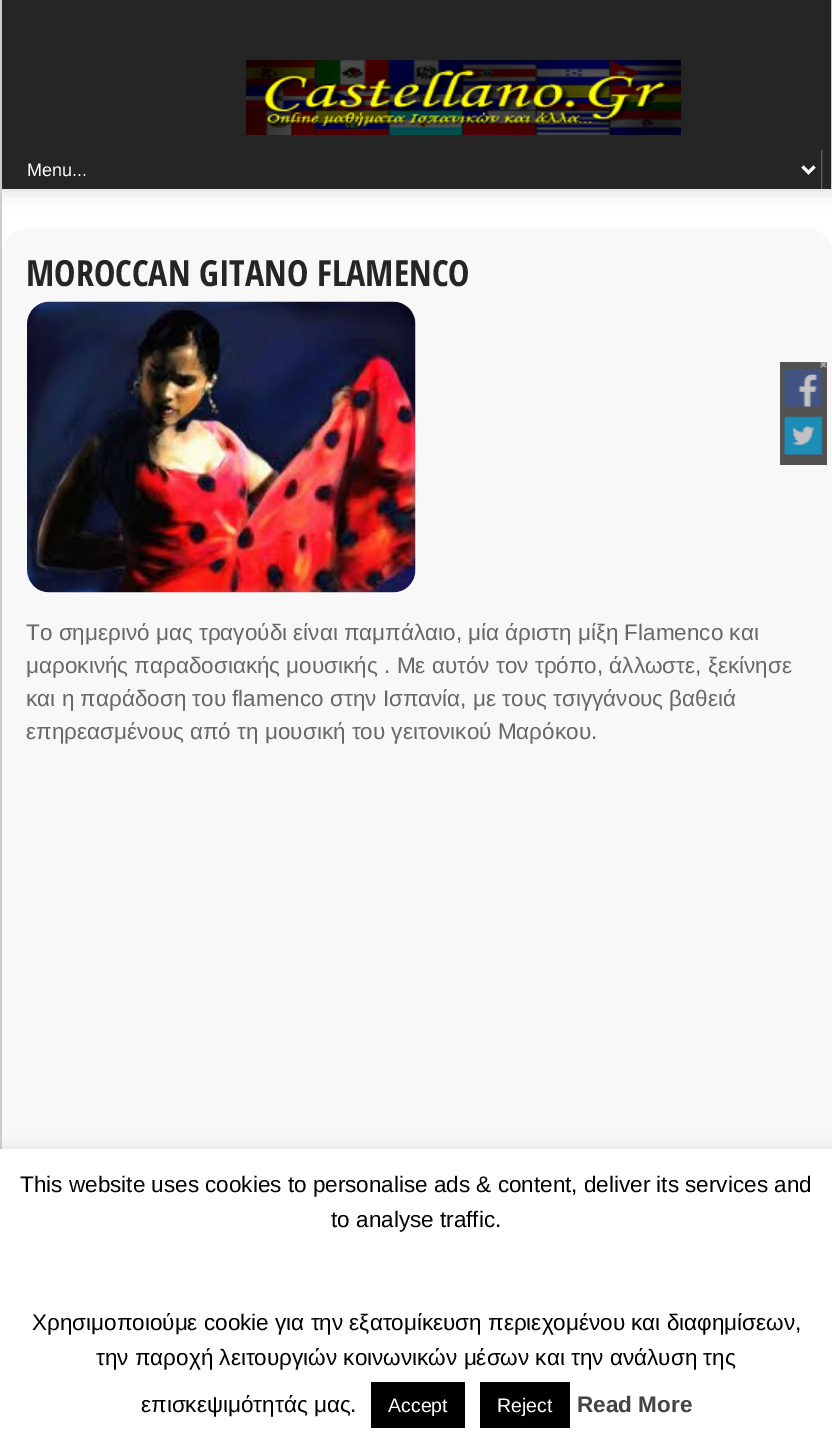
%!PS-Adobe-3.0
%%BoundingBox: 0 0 832 1446
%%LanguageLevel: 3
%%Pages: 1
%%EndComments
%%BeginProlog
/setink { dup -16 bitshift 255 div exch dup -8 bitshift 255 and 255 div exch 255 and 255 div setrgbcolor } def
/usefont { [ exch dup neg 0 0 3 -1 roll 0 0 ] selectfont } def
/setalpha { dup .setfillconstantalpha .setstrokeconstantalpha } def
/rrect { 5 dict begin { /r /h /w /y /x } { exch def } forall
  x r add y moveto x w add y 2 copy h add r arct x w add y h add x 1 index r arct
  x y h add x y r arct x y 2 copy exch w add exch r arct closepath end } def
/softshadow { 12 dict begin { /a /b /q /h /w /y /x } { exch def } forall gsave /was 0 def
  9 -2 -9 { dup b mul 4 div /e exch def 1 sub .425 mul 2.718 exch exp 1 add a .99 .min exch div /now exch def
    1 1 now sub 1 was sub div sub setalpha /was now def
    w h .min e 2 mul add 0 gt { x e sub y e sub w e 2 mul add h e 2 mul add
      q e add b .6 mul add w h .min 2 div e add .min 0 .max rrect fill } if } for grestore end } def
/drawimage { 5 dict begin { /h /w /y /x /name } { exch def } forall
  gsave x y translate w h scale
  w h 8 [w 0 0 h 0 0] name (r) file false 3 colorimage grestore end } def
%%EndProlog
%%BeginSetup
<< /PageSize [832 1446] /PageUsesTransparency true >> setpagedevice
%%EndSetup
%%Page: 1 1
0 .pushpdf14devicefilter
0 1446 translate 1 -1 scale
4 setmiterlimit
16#FFFFFF setink
0 0 832 1446 rectfill
16#CCCCCC setink
0 189 2 960 rectfill
16#D3D2D2 setink
0 0 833 189 0 11 1 softshadow
[
    [821 150 10 39 16#252525]
    [831 0 1 189 16#CCCCCC]
    [0 0 2 189 16#CCCCCC]
] { aload pop setink rectfill } forall
gsave
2 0 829 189 rectclip
16#FFFFFF setink
-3 141 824 60 0 1 0.9 softshadow
grestore
16#252525 setink
2 0 829 150 rectfill
(img1.raw) 246 60 435 75 drawimage
2 150 819 39 rectfill
16#FFFFFF setink
3 setlinewidth
802.5 166.5 moveto 808.5 172.5 lineto 814.5 166.5 lineto stroke
/LiberationSans-Regular 18 usefont
27 176 moveto (Menu...) show
16#F8F8F8 setink
2 227 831 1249 30 rrect fill
/OpenSansCondensed-Bold 36 usefont
16#252525 setink
26 286 moveto (MOROCCAN GITANO FLAMENCO) show
(img2.raw) 27 301 389 292 drawimage
/LiberationSans-Regular 22.5 usefont
16#686868 setink
[
    [(Το σημερινό μας τραγούδι είναι παμπάλαιο, μία άριστη μίξη Flamenco και) 26 640]
    [(μαροκινής παραδοσιακής μουσικής . Με αυτόν τον τρόπο, άλλωστε, ξεκίνησε) 26 673]
    [(και η παράδοση του flamenco στην Ισπανία, με τους τσιγγάνους βαθειά) 26 706]
    [(επηρεασμένους από τη μουσική του γειτονικού Μαρόκου.) 26 739]
] { aload pop moveto show } forall
16#535050 setink
780 362 47 103 rectfill
(img3.raw) 820 362 7 6 drawimage
(img4.raw) 784 369 39 38 drawimage
(img5.raw) 784 416 39 39 drawimage
16#ACABAB setink
0 1148 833 297 0 7.5 0.3 softshadow
16#FFFFFF setink
0 1149 832 297 rectfill
16#000000 setink
[
    [(This website uses cookies to personalise ads & content, deliver its services and) 20 1192]
    [(to analyse traffic.) 331 1227]
    [(Χρησιμοποιούμε cookie για την εξατομίκευση περιεχομένου και διαφημίσεων,) 32 1330]
    [(την παροχή λειτουργιών κοινωνικών μέσων και την ανάλυση της) 96 1365]
    [(επισκεψιμότητάς μας.) 141 1412]
] { aload pop moveto show } forall
371 1382 94 46 rectfill
/LiberationSans-Regular 19.5 usefont
16#FFFFFF setink
388 1412 moveto (Accept) show
16#000000 setink
480 1382 90 46 rectfill
16#FFFFFF setink
497 1412 moveto (Reject) show
/LiberationSans-Bold 22.5 usefont
16#444444 setink
577 1412 moveto (Read More) show
.poppdf14devicefilter showpage
%%EOF
